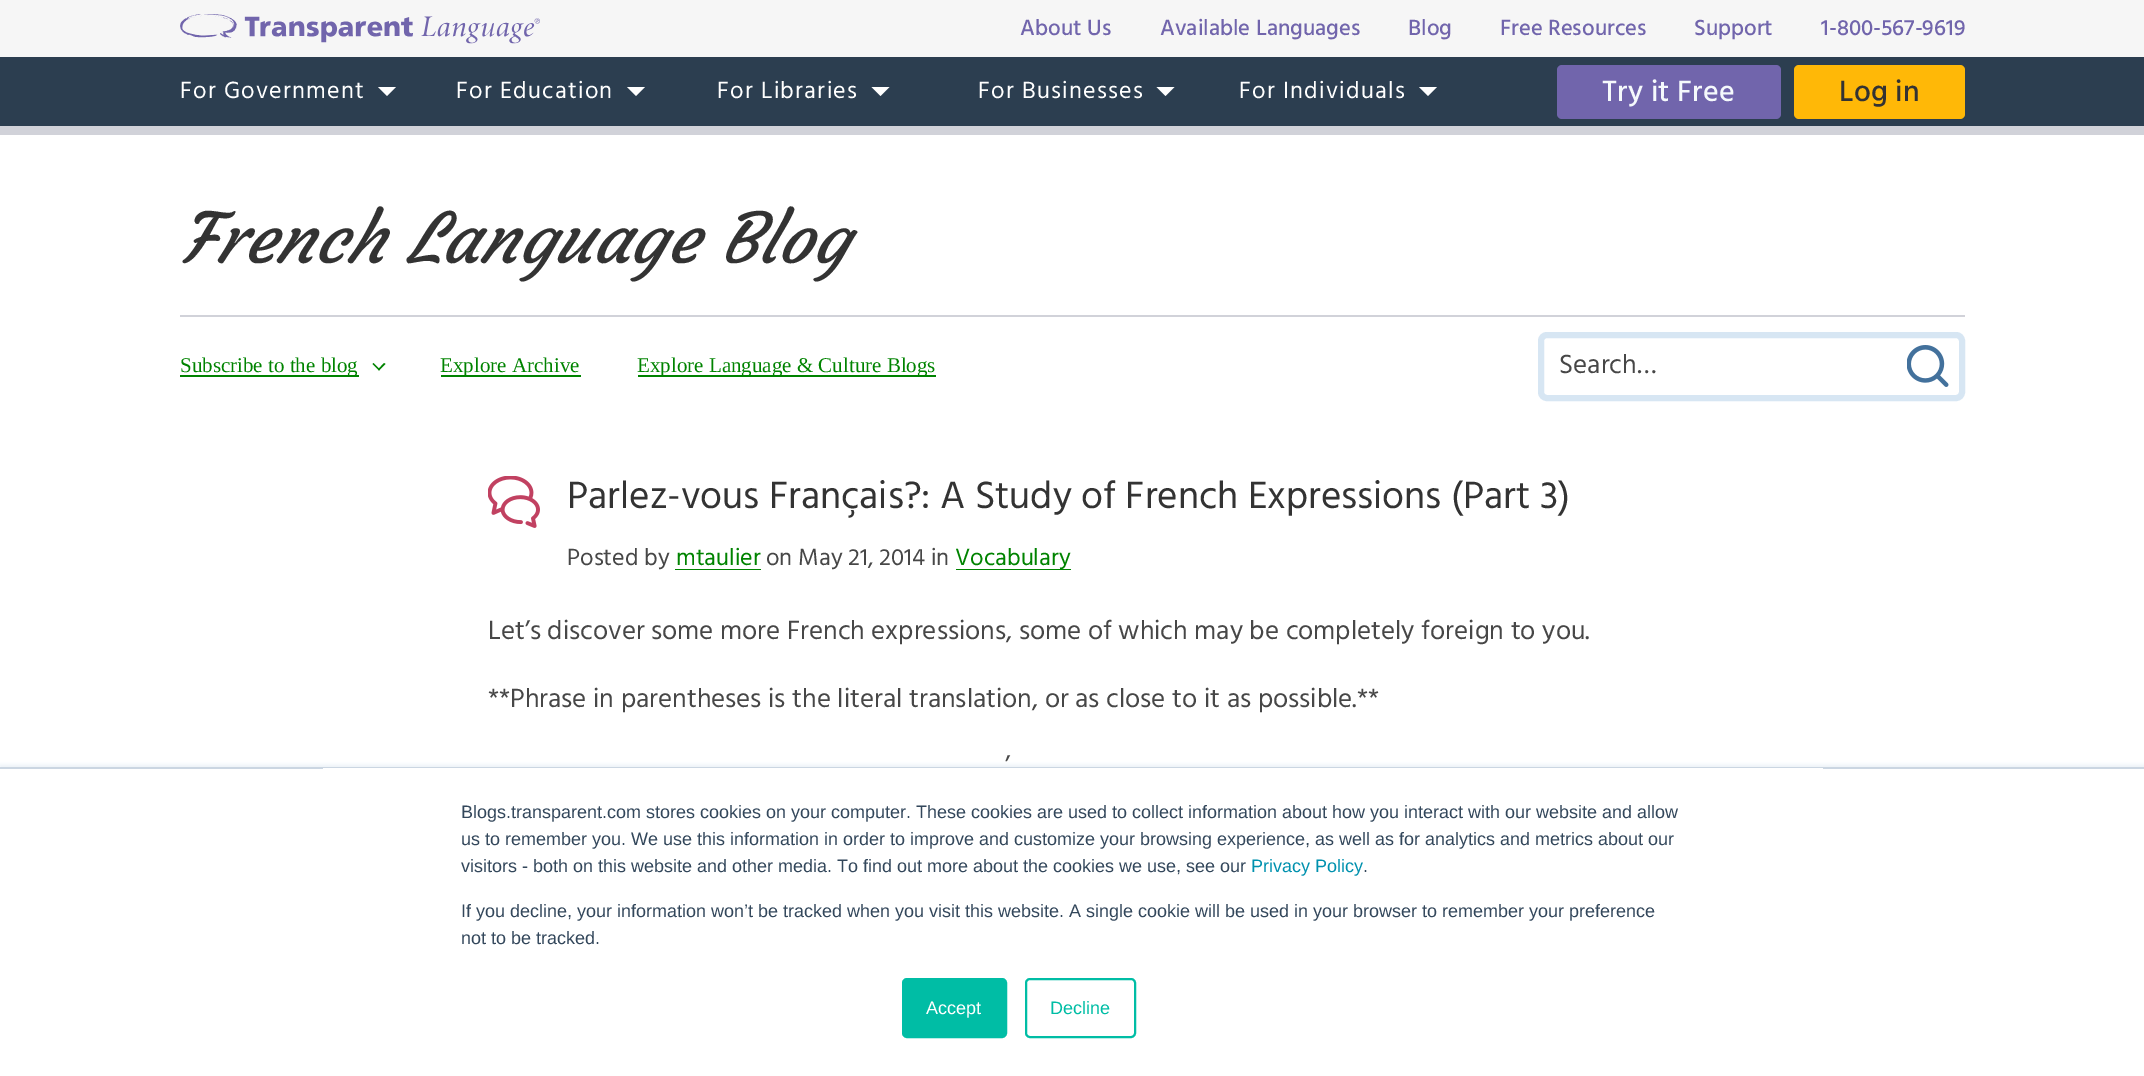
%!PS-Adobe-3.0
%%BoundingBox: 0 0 2144 1076
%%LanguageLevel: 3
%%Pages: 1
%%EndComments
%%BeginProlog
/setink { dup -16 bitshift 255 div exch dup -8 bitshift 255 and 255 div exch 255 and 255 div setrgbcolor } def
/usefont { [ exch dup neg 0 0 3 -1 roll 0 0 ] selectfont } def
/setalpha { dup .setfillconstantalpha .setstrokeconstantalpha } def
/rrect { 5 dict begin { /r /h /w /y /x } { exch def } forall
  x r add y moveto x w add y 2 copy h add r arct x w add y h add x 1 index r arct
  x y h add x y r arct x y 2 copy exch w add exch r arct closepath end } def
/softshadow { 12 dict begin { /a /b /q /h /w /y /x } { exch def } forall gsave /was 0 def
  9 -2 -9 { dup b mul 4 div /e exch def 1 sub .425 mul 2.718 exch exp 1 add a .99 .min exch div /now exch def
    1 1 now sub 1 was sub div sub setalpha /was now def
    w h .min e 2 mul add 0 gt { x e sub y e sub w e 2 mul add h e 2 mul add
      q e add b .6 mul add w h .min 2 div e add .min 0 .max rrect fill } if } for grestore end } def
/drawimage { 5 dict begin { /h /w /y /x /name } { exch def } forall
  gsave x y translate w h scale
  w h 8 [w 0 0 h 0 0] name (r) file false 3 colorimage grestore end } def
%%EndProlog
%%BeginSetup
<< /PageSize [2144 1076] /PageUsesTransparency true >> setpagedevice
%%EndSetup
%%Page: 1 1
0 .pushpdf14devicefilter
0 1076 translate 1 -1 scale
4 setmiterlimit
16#FFFFFF setink
0 0 2144 1076 rectfill
16#F6F6F6 setink
0 0 2144 57 rectfill
(img1.raw) 180 14 360 30 drawimage
/Hind-Medium 22.5 usefont
16#7165AC setink
[
    [(About Us) 1020 35]
    [(Available Languages) 1160 35]
    [(Blog) 1408 35]
    [(Free Resources) 1500 35]
    [(Support) 1694 35]
    [(1-800-567-9619) 1821 35]
] { aload pop moveto show } forall
16#2C3E50 setink
0 57 2144 69 rectfill
16#D1D2D9 setink
0 126 2144 9 rectfill
/Hind-Regular 24 usefont
16#FFFFFF setink
180 98 moveto 1.25 0 (For Government) ashow
378 87 moveto 396 87 lineto 387 96 lineto closepath fill
456 98 moveto 1.25 0 (For Education) ashow
627 87 moveto 645 87 lineto 636 96 lineto closepath fill
717 98 moveto 1.25 0 (For Libraries) ashow
871.5 87 moveto 889.5 87 lineto 880.5 96 lineto closepath fill
978 98 moveto 1.25 0 (For Businesses) ashow
1156.5 87 moveto 1174.5 87 lineto 1165.5 96 lineto closepath fill
1239 98 moveto 1.25 0 (For Individuals) ashow
1419 87 moveto 1437 87 lineto 1428 96 lineto closepath fill
16#7165AC setink
1557 65 224 54 5 rrect fill
/Hind-Medium 30 usefont
16#F5F9FC setink
1602 101 moveto 0.25 0 (Try it Free) ashow
16#FFB807 setink
1794 65 171 54 5 rrect fill
16#333333 setink
1839 101 moveto 0.25 0 (Log in) ashow
16#D1D2D9 setink
180 315 1785 2 rectfill
/Courgette-Italic 69 usefont
16#333333 setink
180 263 moveto (French Language Blog) show
16#008300 setink
180 375 179 2 rectfill
/LiberationSerif-Regular 21 usefont
180 372 moveto (Subscribe to the blog) show
384 363 moveto 385.5 364 lineto 379 370.5 lineto 378 369.5 lineto closepath fill
373.5 363 moveto 380 369.5 lineto 379 370.5 lineto 372.5 364 lineto closepath fill
441 375 140 2 rectfill
440 372 moveto (Explore Archive) show
638 375 298 2 rectfill
637 372 moveto (Explore Language & Culture Blogs) show
16#D7E6F3 setink
6 setlinewidth
1541 335 421 63 6 rrect stroke
/Hind-Regular 27 usefont
16#474747 setink
1559 373 moveto (Search…) show
(img2.raw) 1907 345 42 42 drawimage
(img3.raw) 488 476 52 52 drawimage
/Hind-Regular 39 usefont
16#333333 setink
567 508 moveto (Parlez-vous Français?: A Study of French Expressions \(Part 3\)) show
/Hind-Regular 24 usefont
16#474747 setink
567 565 moveto (Posted by) show
16#008300 setink
676 565 moveto (mtaulier) show
675 569 86 1 rectfill
16#474747 setink
766 565 moveto (on May 21, 2014 in) show
16#008300 setink
956 569 115 1 rectfill
955 565 moveto (Vocabulary) show
/Hind-Regular 27 usefont
16#474747 setink
[
    [(Let’s discover some more French expressions, some of which may be completely foreign to you.) 488 639]
    [(**Phrase in parentheses is the literal translation, or as close to it as possible.**) 488 707]
    [(’) 1005 774]
] { aload pop moveto show } forall
16#EAF0F6 setink
0 765 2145 311 0 2 1 softshadow
[
    [0 769 2144 307 16#FFFFFF]
    [0 767 2144 2 16#CBD6E2]
    [323 768 1500 1 16#FFFFFF]
] { aload pop setink rectfill } forall
/LiberationSans-Regular 18 usefont
16#33475B setink
[
    [(Blogs.transparent.com stores cookies on your computer. These cookies are used to collect information about how you interact with our website and allow) 461 818]
    [(us to remember you. We use this information in order to improve and customize your browsing experience, as well as for analytics and metrics about our) 461 845]
    [(visitors - both on this website and other media. To find out more about the cookies we use, see our) 461 872]
] { aload pop moveto show } forall
16#0091AE setink
1251 872 moveto (Privacy Policy) show
16#33475B setink
[
    [(.) 1363 872]
    [(If you decline, your information won’t be tracked when you visit this website. A single cookie will be used in your browser to remember your preference) 461 917]
    [(not to be tracked.) 461 944]
] { aload pop moveto show } forall
16#00BDA5 setink
903 979 103 58 4 rrect gsave fill grestore
2 setlinewidth
stroke
16#FFFFFF setink
926 1014 moveto (Accept) show
16#00BDA5 setink
1026 979 109 58 4 rrect stroke
1050 1014 moveto (Decline) show
.poppdf14devicefilter showpage
%%EOF
